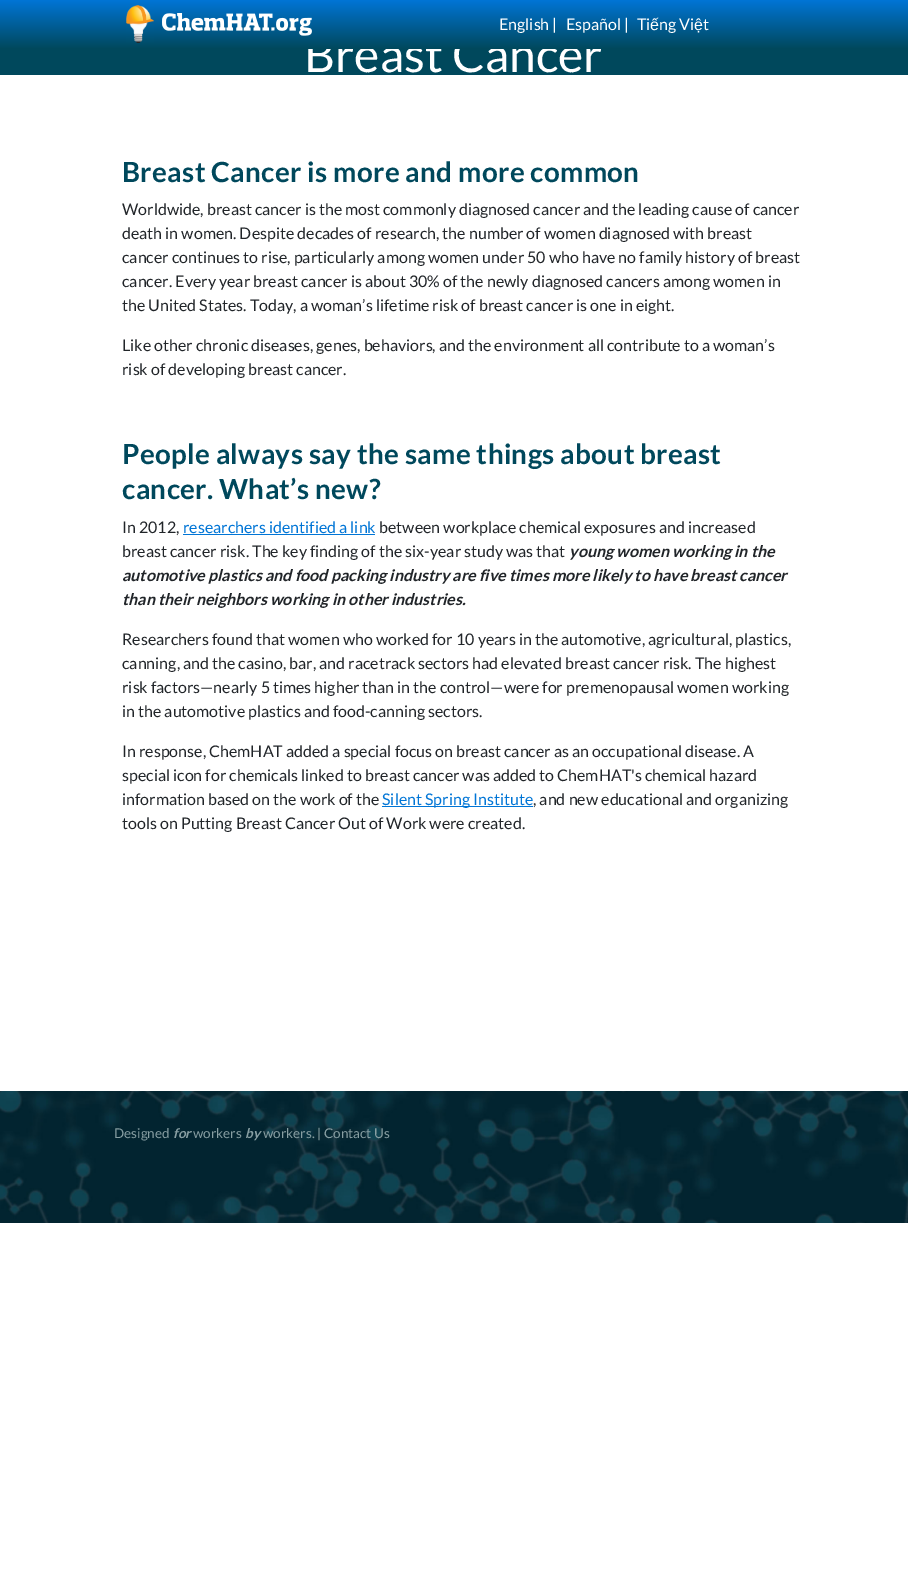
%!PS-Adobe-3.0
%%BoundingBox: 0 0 908 1578
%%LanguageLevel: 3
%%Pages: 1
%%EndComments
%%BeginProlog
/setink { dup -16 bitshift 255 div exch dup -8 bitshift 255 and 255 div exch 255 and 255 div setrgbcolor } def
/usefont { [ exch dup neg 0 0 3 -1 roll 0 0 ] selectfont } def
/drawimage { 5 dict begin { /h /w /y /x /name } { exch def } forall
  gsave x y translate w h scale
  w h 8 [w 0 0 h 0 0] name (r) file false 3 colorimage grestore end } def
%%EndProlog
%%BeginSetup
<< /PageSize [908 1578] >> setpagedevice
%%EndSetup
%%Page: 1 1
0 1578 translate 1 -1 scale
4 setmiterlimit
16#FFFFFF setink
0 0 908 1578 rectfill
16#00485C setink
0 49 908 26 rectfill
/Lato-Regular 48 usefont
16#FFFFFF setink
304 72 moveto (Breast Cancer) show
gsave 0 0 moveto 908 0 lineto 908 49 lineto 0 49 lineto closepath clip newpath
<< /ShadingType 2 /ColorSpace /DeviceRGB /Coords [454 0 454 49] /Extend [true true] /Function << /FunctionType 2 /Domain [0 1] /C0 [0 0.459 0.839] /C1 [0 0.282 0.361] /N 1 >> >> shfill grestore
(img1.raw) 126 5 28 38 drawimage
(img2.raw) 162 13 150 23 drawimage
/Lato-Regular 16 usefont
[
    [(English |) 499 30]
    [(Español |) 566 30]
    [(Ti) 637 30]
] { aload pop moveto show } forall
/LiberationSans-Regular 16 usefont
650 30 moveto (ế) show
/Lato-Regular 16 usefont
659 30 moveto (ng Vi) show
/LiberationSans-Regular 16 usefont
694 30 moveto (ệ) show
/Lato-Regular 16 usefont
703 30 moveto (t) show
/Lato-Bold 27.8 usefont
16#00485C setink
122 182 moveto 0.3 0 (Breast Cancer is more and more common) ashow
/Lato-Regular 16 usefont
16#212529 setink
[
    [(Worldwide, breast cancer is the most commonly diagnosed cancer and the leading cause of cancer) 122 215]
    [(death in women. Despite decades of research, the number of women diagnosed with breast) 122 239]
    [(cancer continues to rise, particularly among women under 50 who have no family history of breast) 122 263]
    [(cancer. Every year breast cancer is about 30% of the newly diagnosed cancers among women in) 122 287]
    [(the United States. Today, a woman’s lifetime risk of breast cancer is one in eight.) 122 311]
    [(Like other chronic diseases, genes, behaviors, and the environment all contribute to a woman’s) 122 351]
    [(risk of developing breast cancer.) 122 375]
] { aload pop moveto show } forall
/Lato-Bold 27.8 usefont
16#00485C setink
122 464 moveto 0.3 0 (People always say the same things about breast) ashow
122 499 moveto 0.3 0 (cancer. What’s new?) ashow
/Lato-Regular 16 usefont
16#212529 setink
122 533 moveto (In 2012,) show
16#0075D6 setink
183 533 moveto (researchers identified a link) show
183 534 192 1 rectfill
16#212529 setink
379 533 moveto (between workplace chemical exposures and increased) show
122 557 moveto (breast cancer risk. The key finding of the six-year study was that) show
/Lato-BoldItalic 16 usefont
[
    [(young women working in the) 569 557]
    [(automotive plastics and food packing industry are five times more likely to have breast cancer) 122 581]
    [(than their neighbors working in other industries.) 122 605]
] { aload pop moveto show } forall
/Lato-Regular 16 usefont
[
    [(Researchers found that women who worked for 10 years in the automotive, agricultural, plastics,) 122 645]
    [(canning, and the casino, bar, and racetrack sectors had elevated breast cancer risk. The highest) 122 669]
    [(risk factors—nearly 5 times higher than in the control—were for premenopausal women working) 122 693]
    [(in the automotive plastics and food-canning sectors.) 122 717]
    [(In response, ChemHAT added a special focus on breast cancer as an occupational disease. A) 122 757]
    [(special icon for chemicals linked to breast cancer was added to ChemHAT's chemical hazard) 122 781]
    [(information based on the work of the) 122 805]
] { aload pop moveto show } forall
16#0075D6 setink
382 806 151 1 rectfill
382 805 moveto (Silent Spring Institute) show
16#212529 setink
533 805 moveto (, and new educational and organizing) show
122 829 moveto (tools on Putting Breast Cancer Out of Work were created.) show
(img3.raw) 0 1091 908 132 drawimage
/Lato-Regular 13.5 usefont
16#879EA2 setink
114 1138 moveto (Designed) show
/Lato-BoldItalic 13.5 usefont
173 1138 moveto (for) show
/Lato-Regular 13.5 usefont
193 1138 moveto (workers) show
/Lato-BoldItalic 13.5 usefont
245 1138 moveto (by) show
/Lato-Regular 13.5 usefont
263 1138 moveto (workers. | Contact Us) show
showpage
%%EOF
